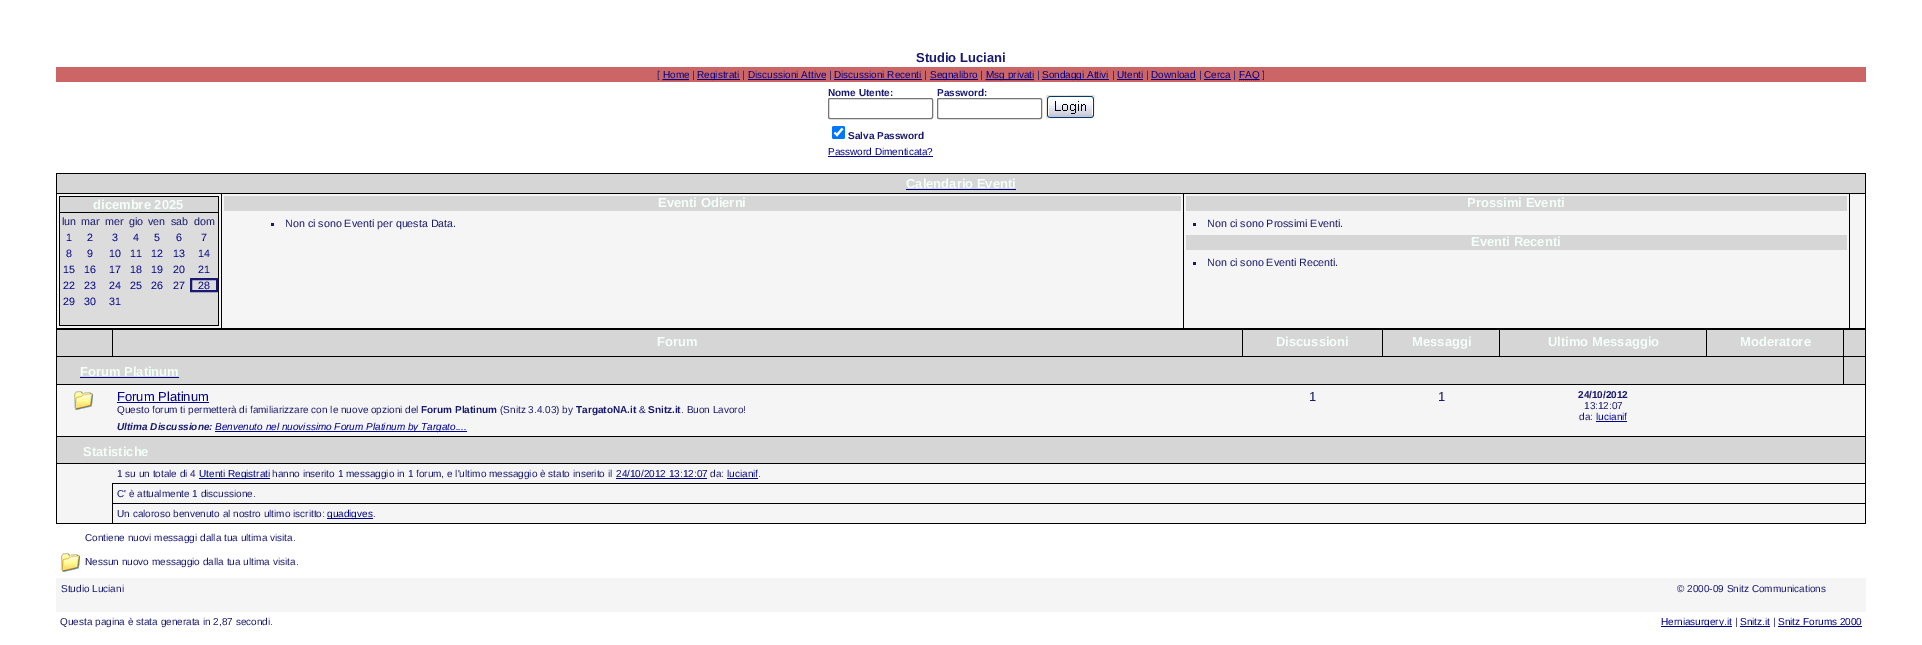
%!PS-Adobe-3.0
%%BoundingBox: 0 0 1922 645
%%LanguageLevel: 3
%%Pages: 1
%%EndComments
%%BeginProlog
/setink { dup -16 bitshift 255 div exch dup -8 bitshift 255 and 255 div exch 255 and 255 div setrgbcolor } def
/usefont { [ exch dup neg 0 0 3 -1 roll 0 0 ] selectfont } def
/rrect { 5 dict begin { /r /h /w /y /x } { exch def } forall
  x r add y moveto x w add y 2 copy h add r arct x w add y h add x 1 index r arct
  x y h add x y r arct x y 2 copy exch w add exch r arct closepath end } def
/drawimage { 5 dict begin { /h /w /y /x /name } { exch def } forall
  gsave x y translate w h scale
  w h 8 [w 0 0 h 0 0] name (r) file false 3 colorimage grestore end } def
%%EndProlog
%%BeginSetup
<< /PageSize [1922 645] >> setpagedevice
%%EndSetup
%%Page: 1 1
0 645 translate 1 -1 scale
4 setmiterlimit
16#FFFFFF setink
0 0 1922 645 rectfill
/LiberationSans-Bold 13 usefont
16#191970 setink
916 62 moveto (Studio Luciani) show
16#CC6666 setink
56 67 1810 15 rectfill
/LiberationSans-Regular 10 usefont
16#191970 setink
657 78 moveto ([) show
16#00008B setink
663 78 moveto (Home) show
[1 1] 0 setdash
662.5 79.5 moveto 689 79.5 lineto stroke
663 79 26 1 rectfill
16#191970 setink
692 78 moveto (|) show
16#00008B setink
697 79 43 1 rectfill
697 78 moveto (Registrati) show
16#191970 setink
742 78 moveto (|) show
16#00008B setink
748 78 moveto (Discussioni Attive) show
748 79 78 1 rectfill
16#191970 setink
829 78 moveto (|) show
16#00008B setink
834 78 moveto (Discussioni Recenti) show
834 79 88 1 rectfill
16#191970 setink
924 78 moveto (|) show
16#00008B setink
930 79 48 1 rectfill
930 78 moveto (Segnalibro) show
16#191970 setink
980 78 moveto (|) show
16#00008B setink
985.5 79.5 moveto 1034 79.5 lineto stroke
986 79 48 1 rectfill
986 78 moveto (Msg privati) show
16#191970 setink
1037 78 moveto (|) show
16#00008B setink
1042 79 67 1 rectfill
1042 78 moveto (Sondaggi Attivi) show
16#191970 setink
1112 78 moveto (|) show
16#00008B setink
1117 78 moveto (Utenti) show
1117 79 26 1 rectfill
16#191970 setink
1146 78 moveto (|) show
16#00008B setink
1151 78 moveto (Download) show
1151 79 45 1 rectfill
16#191970 setink
1199 78 moveto (|) show
16#00008B setink
1204 78 moveto (Cerca) show
1204 79 27 1 rectfill
16#191970 setink
1233 78 moveto (|) show
16#00008B setink
1239 79.5 moveto 1259.5 79.5 lineto stroke
1239 79 20 1 rectfill
1239 78 moveto (FAQ) show
16#191970 setink
1262 78 moveto (]) show
/LiberationSans-Bold 10 usefont
828 96 moveto (Nome Utente:) show
16#767676 setink
[] 0 setdash
828.5 98.5 104 20 1.5 rrect stroke
16#191970 setink
937 96 moveto (Password:) show
16#767676 setink
937.5 98.5 104 20 1.5 rrect stroke
(img1.raw) 1046 95 49 24 drawimage
16#0075FF setink
832 126 13 13 2 rrect fill
16#FFFFFF setink
2.1 setlinewidth
834.5 132.5 moveto 837 135 lineto 842.5 128.5 lineto stroke
16#191970 setink
848 139 moveto (Salva Password) show
/LiberationSans-Regular 10 usefont
16#00008B setink
828 155 moveto (Password Dimenticata?) show
[
    [828 156 105 1 16#00008B]
    [56 173 1810 351 16#000000]
    [57 174 1808 19 16#D6D6D6]
] { aload pop setink rectfill } forall
/LiberationSans-Bold 13 usefont
16#F5FFFA setink
906 188 moveto (Calendario Eventi) show
[
    [906 189 110 1 16#00008B]
    [57 194 164 134 16#F5F5F5]
    [59 196 160 130 16#000000]
    [60 197 158 15 16#D6D6D6]
] { aload pop setink rectfill } forall
16#F5FFFA setink
93 209 moveto (dicembre 2025) show
16#DCDCDC setink
60 213 158 112 rectfill
/LiberationSans-Regular 10.7 usefont
16#191970 setink
[
    [(lun) 62 225]
    [(mar) 81 225]
    [(mer) 105 225]
    [(gio) 129 225]
    [(ven) 148 225]
    [(sab) 171 225]
    [(dom) 194 225]
] { aload pop moveto show } forall
16#00008B setink
[
    [(1) 66 241]
    [(2) 87 241]
    [(3) 112 241]
    [(4) 133 241]
    [(5) 154 241]
    [(6) 176 241]
    [(7) 201 241]
    [(8) 66 257]
    [(9) 87 257]
    [(10) 109 257]
    [(11) 130 257]
    [(12) 151 257]
    [(13) 173 257]
    [(14) 198 257]
    [(15) 63 273]
    [(16) 84 273]
    [(17) 109 273]
    [(18) 130 273]
    [(19) 151 273]
    [(20) 173 273]
    [(21) 198 273]
    [(22) 63 289]
    [(23) 84 289]
    [(24) 109 289]
    [(25) 130 289]
    [(26) 151 289]
    [(27) 173 289]
] { aload pop moveto show } forall
16#191970 setink
2 setlinewidth
191 279 26 12 rectstroke
16#00008B setink
[
    [(28) 198 289]
    [(29) 63 305]
    [(30) 84 305]
    [(31) 109 305]
] { aload pop moveto show } forall
16#F5F5F5 setink
222 194 961 134 rectfill
16#D6D6D6 setink
224 196 957 15 rectfill
/LiberationSans-Bold 13 usefont
16#F5FFFA setink
658 207 moveto (Eventi Odierni) show
16#191970 setink
271 223 3 3 rectfill
/LiberationSans-Regular 10.7 usefont
285 227 moveto (Non ci sono Eventi per questa Data.) show
16#F5F5F5 setink
1184 194 665 134 rectfill
16#D6D6D6 setink
1186 196 661 15 rectfill
/LiberationSans-Bold 13 usefont
16#F5FFFA setink
1467 207 moveto (Prossimi Eventi) show
16#191970 setink
1193 223 3 3 rectfill
/LiberationSans-Regular 10.7 usefont
1207 227 moveto (Non ci sono Prossimi Eventi.) show
16#D6D6D6 setink
1186 235 661 15 rectfill
/LiberationSans-Bold 13 usefont
16#F5FFFA setink
1471 246 moveto (Eventi Recenti) show
16#191970 setink
1193 262 3 3 rectfill
/LiberationSans-Regular 10.7 usefont
1207 266 moveto (Non ci sono Eventi Recenti.) show
[
    [1850 194 15 134 16#F5F5F5]
    [57 330 55 26 16#D6D6D6]
    [113 330 1129 26 16#D6D6D6]
] { aload pop setink rectfill } forall
/LiberationSans-Bold 13 usefont
16#F5FFFA setink
657 346 moveto (Forum) show
16#D6D6D6 setink
1243 330 139 26 rectfill
16#F5FFFA setink
1276 346 moveto (Discussioni) show
16#D6D6D6 setink
1383 330 116 26 rectfill
16#F5FFFA setink
1412 346 moveto (Messaggi) show
16#D6D6D6 setink
1500 330 206 26 rectfill
16#F5FFFA setink
1548 346 moveto (Ultimo Messaggio) show
16#D6D6D6 setink
1707 330 136 26 rectfill
16#F5FFFA setink
1740 346 moveto (Moderatore) show
16#D6D6D6 setink
1844 330 21 26 rectfill
57 357 1786 27 rectfill
16#F5FFFA setink
80 376 moveto (Forum Platinum) show
[
    [80 377 99 1 16#00008B]
    [1844 357 21 27 16#D6D6D6]
    [57 385 1808 51 16#F5F5F5]
] { aload pop setink rectfill } forall
(img2.raw) 74 391 19 19 drawimage
/LiberationSans-Regular 13 usefont
16#00008B setink
117 401 moveto (Forum Platinum) show
117 402 92 1 rectfill
/LiberationSans-Regular 10 usefont
16#191970 setink
117 413 moveto (Questo forum ti permetterà di familiarizzare con le nuove opzioni del) show
/LiberationSans-Bold 10 usefont
421 413 moveto (Forum Platinum) show
/LiberationSans-Regular 10 usefont
500 413 moveto (\(Snitz 3.4.03\) by) show
/LiberationSans-Bold 10 usefont
576 413 moveto (TargatoNA.it) show
/LiberationSans-Regular 10 usefont
639 413 moveto (&) show
/LiberationSans-Bold 10 usefont
648 413 moveto (Snitz.it) show
/LiberationSans-Regular 10 usefont
681 413 moveto (. Buon Lavoro!) show
/LiberationSans-BoldItalic 10 usefont
117 430 moveto (Ultima Discussione:) show
16#00008B setink
215 431 252 1 rectfill
/LiberationSans-Italic 10 usefont
215 430 moveto (Benvenuto nel nuovissimo Forum Platinum by Targato....) show
/LiberationSans-Regular 13 usefont
16#191970 setink
1309 401 moveto (1) show
1438 401 moveto (1) show
/LiberationSans-Bold 10 usefont
1578 398 moveto (24/10/2012) show
/LiberationSans-Regular 10 usefont
1584 409 moveto (13:12:07) show
1579 420 moveto (da:) show
16#00008B setink
1596 420 moveto (lucianif) show
1596 421 31 1 rectfill
16#D6D6D6 setink
57 437 1808 26 rectfill
/LiberationSans-Bold 13 usefont
16#F5FFFA setink
83 456 moveto (Statistiche) show
16#F5F5F5 setink
112 464 1753 19 rectfill
57 464 55 59 rectfill
/LiberationSans-Regular 10 usefont
16#191970 setink
117 477 moveto (1 su un totale di 4) show
16#00008B setink
199 478 71 1 rectfill
199 477 moveto (Utenti Registrati) show
16#191970 setink
272 477 moveto (hanno inserito 1 messaggio in 1 forum, e l'ultimo messaggio è stato inserito il) show
16#00008B setink
616 477 moveto (24/10/2012 13:12:07) show
616 478 91 1 rectfill
16#191970 setink
710 477 moveto (da:) show
16#00008B setink
727 477 moveto (lucianif) show
16#191970 setink
758 477 moveto (.) show
16#00008B setink
727 478 31 1 rectfill
16#F5F5F5 setink
113 484 1752 19 rectfill
16#191970 setink
117 497 moveto (C' è attualmente 1 discussione.) show
16#F5F5F5 setink
113 504 1752 19 rectfill
16#191970 setink
117 517 moveto (Un caloroso benvenuto al nostro ultimo iscritto:) show
16#00008B setink
327 518 46 1 rectfill
327 517 moveto (quadigves) show
16#191970 setink
373 517 moveto (.) show
85 541 moveto (Contiene nuovi messaggi dalla tua ultima visita.) show
(img3.raw) 61 553 19 19 drawimage
85 565 moveto (Nessun nuovo messaggio dalla tua ultima visita.) show
16#F5F5F5 setink
56 578 1810 34 rectfill
16#191970 setink
[
    [(Studio Luciani) 61 592]
    [(© 2000-09 Snitz Communications) 1677 592]
    [(Questa pagina è stata generata in 2,87 secondi.) 60 625]
] { aload pop moveto show } forall
16#00008B setink
1661 626 71 1 rectfill
1661 625 moveto (Herniasurgery.it) show
16#191970 setink
1735 625 moveto (|) show
16#00008B setink
1740 625 moveto (Snitz.it) show
1740 626 30 1 rectfill
16#191970 setink
1773 625 moveto (|) show
16#00008B setink
1778 625 moveto (Snitz Forums 2000) show
1778 626 84 1 rectfill
showpage
%%EOF
